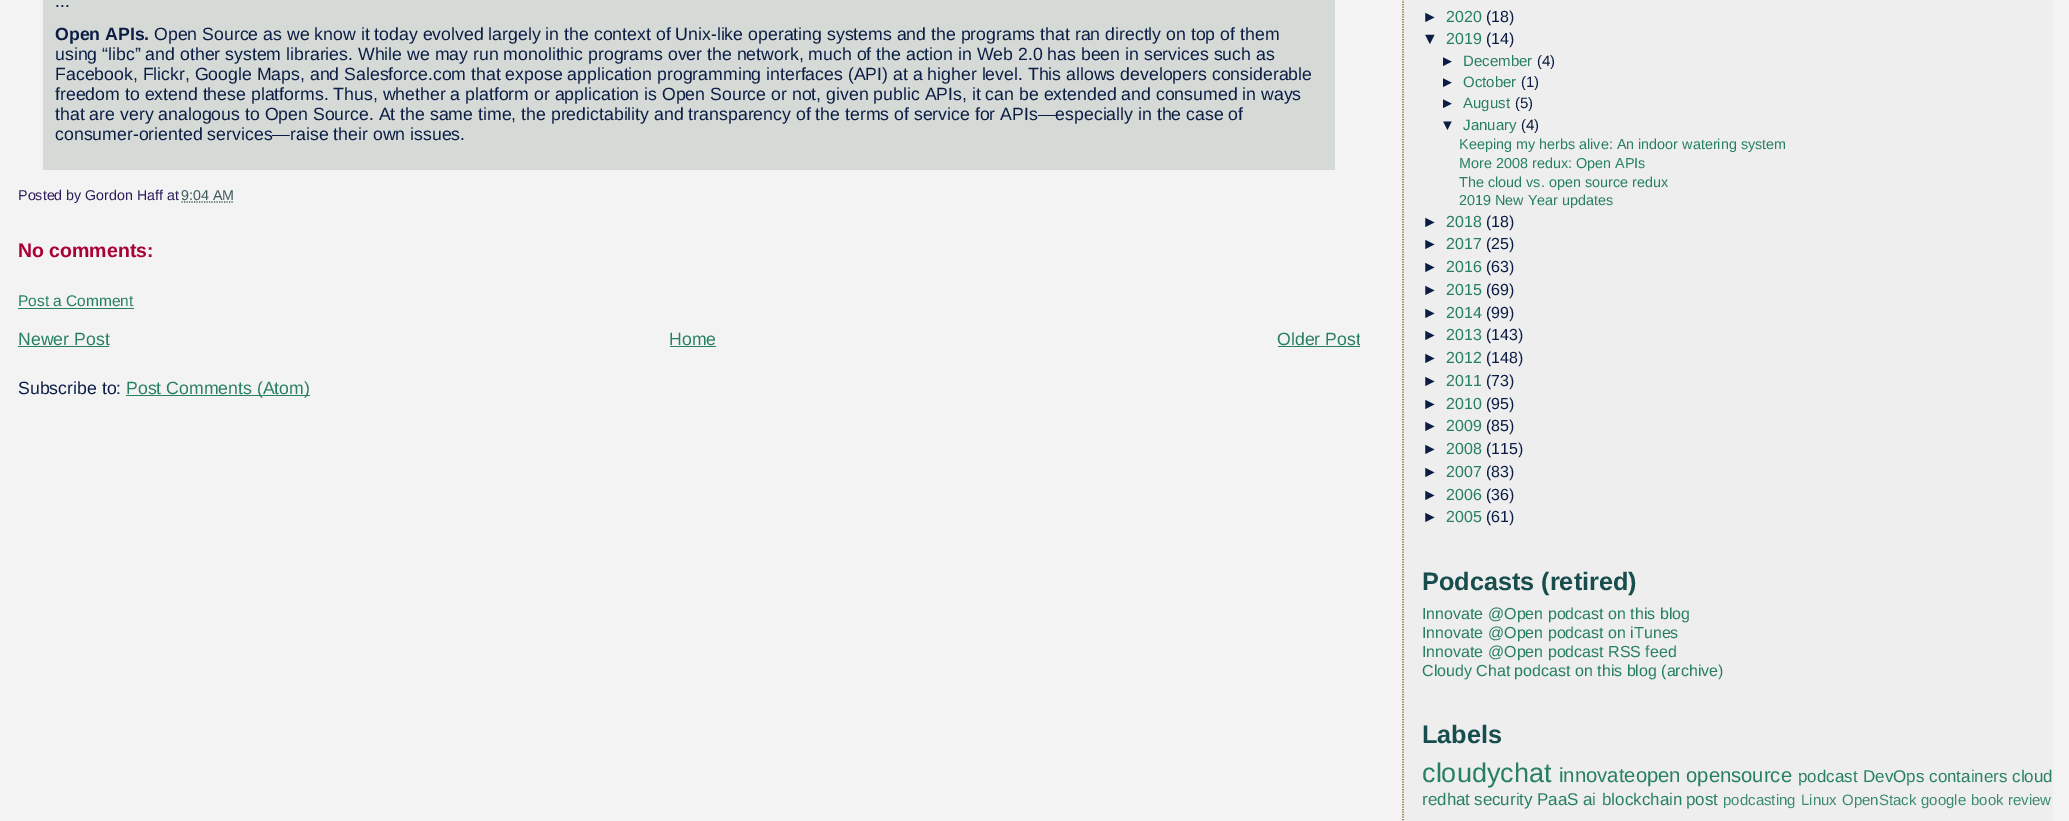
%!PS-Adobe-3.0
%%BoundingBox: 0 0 2069 821
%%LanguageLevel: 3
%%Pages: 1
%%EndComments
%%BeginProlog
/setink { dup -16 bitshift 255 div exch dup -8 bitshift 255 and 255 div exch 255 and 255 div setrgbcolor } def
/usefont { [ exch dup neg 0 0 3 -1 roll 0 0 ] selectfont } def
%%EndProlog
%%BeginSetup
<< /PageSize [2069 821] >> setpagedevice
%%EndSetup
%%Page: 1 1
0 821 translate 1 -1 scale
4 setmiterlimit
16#F3F3F3 setink
0 0 2069 821 rectfill
16#D5DAD6 setink
43 0 1292 170 rectfill
/LiberationSans-Regular 17.7 usefont
16#0B1D45 setink
55 7 moveto (...) show
/LiberationSans-Bold 17.7 usefont
55 40 moveto (Open APIs.) show
/LiberationSans-Regular 17.7 usefont
[
    [(Open Source as we know it today evolved largely in the context of Unix-like operating systems and the programs that ran directly on top of them) 154 40]
    [(using “libc” and other system libraries. While we may run monolithic programs over the network, much of the action in Web 2.0 has been in services such as) 55 60]
    [(Facebook, Flickr, Google Maps, and Salesforce.com that expose application programming interfaces \(API\) at a higher level. This allows developers considerable) 55 80]
    [(freedom to extend these platforms. Thus, whether a platform or application is Open Source or not, given public APIs, it can be extended and consumed in ways) 55 100]
    [(that are very analogous to Open Source. At the same time, the predictability and transparency of the terms of service for APIs—especially in the case of) 55 120]
    [(consumer-oriented services—raise their own issues.) 55 140]
] { aload pop moveto show } forall
/LiberationSans-Regular 14.25 usefont
16#2A1C58 setink
18 200 moveto (Posted by Gordon Haff at) show
16#3D5858 setink
181 200 moveto (9:04 AM) show
1.2 setlinewidth
[1.25 1.25] 0 setdash
181.5 202 moveto 234 202 lineto stroke
/LiberationSans-Bold 19.5 usefont
16#AA0033 setink
18 257 moveto (No comments:) show
/LiberationSans-Regular 15.5 usefont
16#268061 setink
18 306 moveto (Post a Comment) show
18 308 116 1 rectfill
/LiberationSans-Regular 17.7 usefont
18 345 moveto (Newer Post) show
18 346 91 1 rectfill
669 345 moveto (Home) show
670 346 46 1 rectfill
gsave
18 329 1342 20 rectclip
1277 345 moveto (Older Post) show
grestore
1278 346 82 1 rectfill
16#0B1D45 setink
18 394 moveto (Subscribe to:) show
16#268061 setink
126 395 184 1 rectfill
126 394 moveto (Post Comments \(Atom\)) show
16#EEEEEE setink
1403 0 650 821 rectfill
16#806226 setink
1403 -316 moveto 1403 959 lineto stroke
/LiberationSans-Regular 16 usefont
16#0B1D45 setink
1422 22 moveto (►) show
16#268061 setink
1446 22 moveto (2020) show
16#0B1D45 setink
1486 22 moveto (\(18\)) show
1422 44 moveto (▼) show
16#268061 setink
1446 44 moveto (2019) show
16#0B1D45 setink
1486 44 moveto (\(14\)) show
/LiberationSans-Regular 15 usefont
1440 66 moveto (►) show
16#268061 setink
1463 66 moveto (December) show
16#0B1D45 setink
1537 66 moveto (\(4\)) show
1440 87 moveto (►) show
16#268061 setink
1463 87 moveto (October) show
16#0B1D45 setink
1521 87 moveto (\(1\)) show
1440 108 moveto (►) show
16#268061 setink
1463 108 moveto (August) show
16#0B1D45 setink
1515 108 moveto (\(5\)) show
1440 130 moveto (▼) show
16#268061 setink
1463 130 moveto (January) show
16#0B1D45 setink
1521 130 moveto (\(4\)) show
/LiberationSans-Regular 14.4 usefont
16#268061 setink
[
    [(Keeping my herbs alive: An indoor watering system) 1459 149]
    [(More 2008 redux: Open APIs) 1459 168]
    [(The cloud vs. open source redux) 1459 187]
    [(2019 New Year updates) 1459 205]
] { aload pop moveto show } forall
/LiberationSans-Regular 16 usefont
16#0B1D45 setink
1422 227 moveto (►) show
16#268061 setink
1446 227 moveto (2018) show
16#0B1D45 setink
1486 227 moveto (\(18\)) show
1422 249 moveto (►) show
16#268061 setink
1446 249 moveto (2017) show
16#0B1D45 setink
1486 249 moveto (\(25\)) show
1422 272 moveto (►) show
16#268061 setink
1446 272 moveto (2016) show
16#0B1D45 setink
1486 272 moveto (\(63\)) show
1422 295 moveto (►) show
16#268061 setink
1446 295 moveto (2015) show
16#0B1D45 setink
1486 295 moveto (\(69\)) show
1422 318 moveto (►) show
16#268061 setink
1446 318 moveto (2014) show
16#0B1D45 setink
1486 318 moveto (\(99\)) show
1422 340 moveto (►) show
16#268061 setink
1446 340 moveto (2013) show
16#0B1D45 setink
1486 340 moveto (\(143\)) show
1422 363 moveto (►) show
16#268061 setink
1446 363 moveto (2012) show
16#0B1D45 setink
1486 363 moveto (\(148\)) show
1422 386 moveto (►) show
16#268061 setink
1446 386 moveto (2011) show
16#0B1D45 setink
1486 386 moveto (\(73\)) show
1422 409 moveto (►) show
16#268061 setink
1446 409 moveto (2010) show
16#0B1D45 setink
1486 409 moveto (\(95\)) show
1422 431 moveto (►) show
16#268061 setink
1446 431 moveto (2009) show
16#0B1D45 setink
1486 431 moveto (\(85\)) show
1422 454 moveto (►) show
16#268061 setink
1446 454 moveto (2008) show
16#0B1D45 setink
1486 454 moveto (\(115\)) show
1422 477 moveto (►) show
16#268061 setink
1446 477 moveto (2007) show
16#0B1D45 setink
1486 477 moveto (\(83\)) show
1422 500 moveto (►) show
16#268061 setink
1446 500 moveto (2006) show
16#0B1D45 setink
1486 500 moveto (\(36\)) show
1422 522 moveto (►) show
16#268061 setink
1446 522 moveto (2005) show
16#0B1D45 setink
1486 522 moveto (\(61\)) show
/LiberationSans-Bold 25.25 usefont
16#174D4D setink
1422 590 moveto (Podcasts \(retired\)) show
/LiberationSans-Regular 16 usefont
16#268061 setink
[
    [(Innovate @Open podcast on this blog) 1422 619]
    [(Innovate @Open podcast on iTunes) 1422 638]
    [(Innovate @Open podcast RSS feed) 1422 657]
    [(Cloudy Chat podcast on this blog \(archive\)) 1422 676]
] { aload pop moveto show } forall
/LiberationSans-Bold 25.25 usefont
16#174D4D setink
1422 743 moveto (Labels) show
/LiberationSans-Regular 27 usefont
16#268061 setink
1422 782 moveto (cloudychat) show
/LiberationSans-Regular 20.25 usefont
1559 782 moveto (innovateopen) show
1686 782 moveto (opensource) show
/LiberationSans-Regular 17 usefont
[
    [(podcast) 1798 782]
    [(DevOps) 1863 782]
    [(containers) 1929 782]
    [(cloud) 2012 782]
    [(redhat) 1422 805]
    [(security) 1474 805]
    [(PaaS) 1537 805]
    [(ai) 1583 805]
    [(blockchain) 1602 805]
    [(post) 1686 805]
] { aload pop moveto show } forall
/LiberationSans-Regular 15 usefont
16#3A8B6F setink
[
    [(podcasting) 1723 805]
    [(Linux) 1801 805]
    [(OpenStack) 1842 805]
    [(google) 1921 805]
    [(book review) 1971 805]
] { aload pop moveto show } forall
showpage
%%EOF
